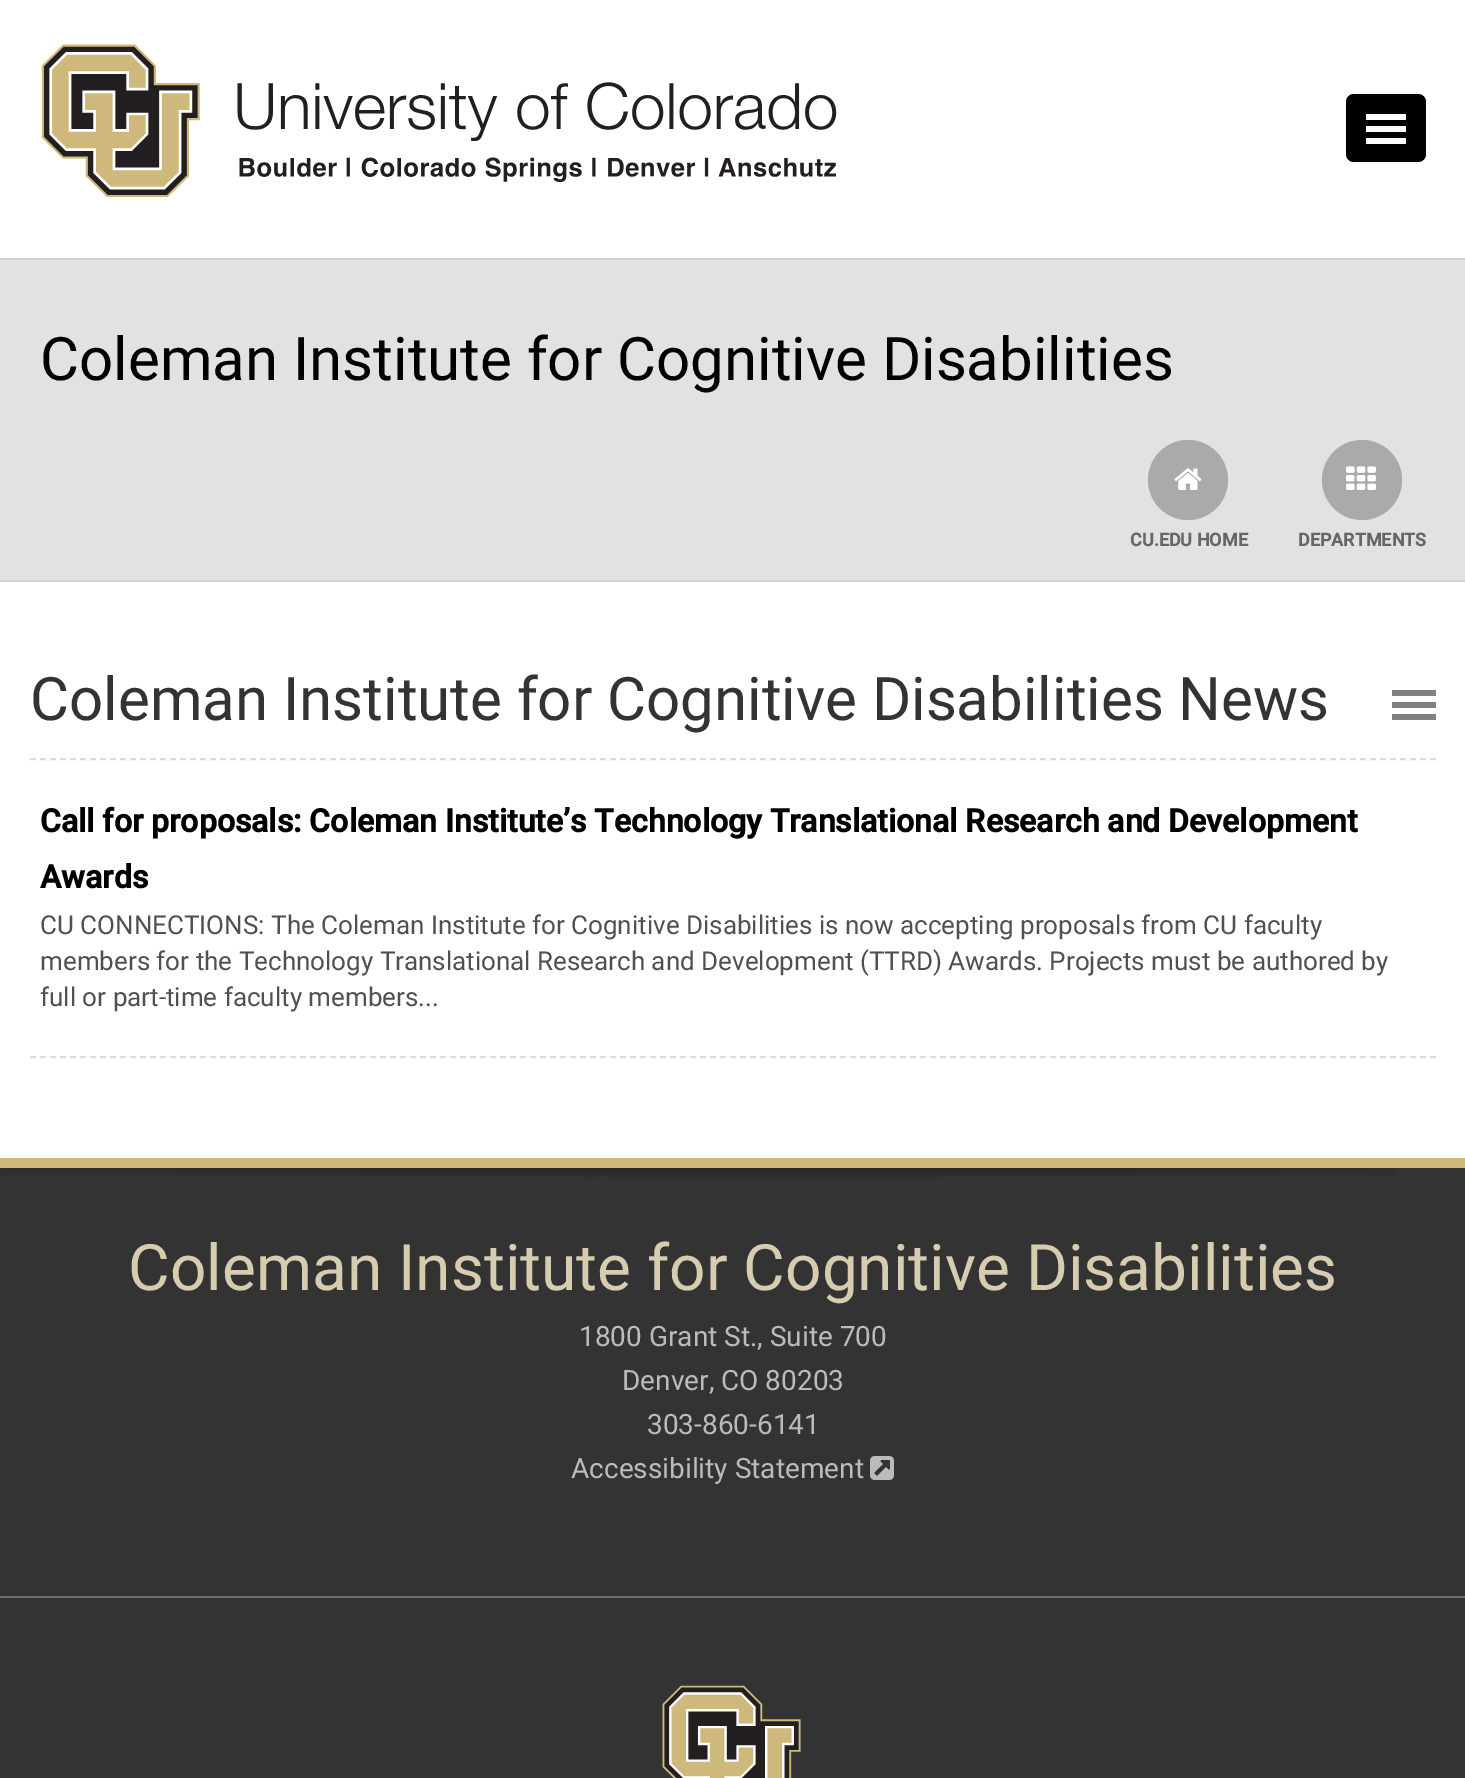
%!PS-Adobe-3.0
%%BoundingBox: 0 0 1465 1778
%%LanguageLevel: 3
%%Pages: 1
%%EndComments
%%BeginProlog
/setink { dup -16 bitshift 255 div exch dup -8 bitshift 255 and 255 div exch 255 and 255 div setrgbcolor } def
/usefont { [ exch dup neg 0 0 3 -1 roll 0 0 ] selectfont } def
/disc { newpath 0 360 arc closepath } def
/rrect { 5 dict begin { /r /h /w /y /x } { exch def } forall
  x r add y moveto x w add y 2 copy h add r arct x w add y h add x 1 index r arct
  x y h add x y r arct x y 2 copy exch w add exch r arct closepath end } def
/drawimage { 5 dict begin { /h /w /y /x /name } { exch def } forall
  gsave x y translate w h scale
  w h 8 [w 0 0 h 0 0] name (r) file false 3 colorimage grestore end } def
%%EndProlog
%%BeginSetup
<< /PageSize [1465 1778] >> setpagedevice
%%EndSetup
%%Page: 1 1
0 1778 translate 1 -1 scale
4 setmiterlimit
16#FFFFFF setink
0 0 1465 1778 rectfill
(img1.raw) 41 44 796 153 drawimage
16#000000 setink
1346 94 80 68 8 rrect fill
[
    [1366 114 40 6 16#FFFFFF]
    [1366 126 40 6 16#FFFFFF]
    [1366 138 40 6 16#FFFFFF]
    [0 260 1465 320 16#E2E2E2]
    [0 258 1465 2 16#D2D2D2]
] { aload pop setink rectfill } forall
/Roboto-Regular 60 usefont
16#000000 setink
40 380 moveto (Coleman Institute for Cognitive Disabilities) show
16#AAAAAA setink
1188 480 40 disc fill
(img2.raw) 1174 468 28 22 drawimage
/Roboto-Bold 18 usefont
16#666666 setink
1130 546 moveto (CU.EDU HOME) show
16#AAAAAA setink
1362 480 40 disc fill
(img3.raw) 1346 466 30 24 drawimage
16#666666 setink
1298 546 moveto (DEPARTMENTS) show
[
    [0 580 1465 2 16#D2D3D4]
    [1392 690 44 6 16#808080]
    [1392 702 44 6 16#808080]
    [1392 714 44 6 16#808080]
] { aload pop setink rectfill } forall
/Roboto-Regular 60 usefont
16#333333 setink
30 720 moveto (Coleman Institute for Cognitive Disabilities News) show
16#DDDDDD setink
2 setlinewidth
[6 4] 0 setdash
30 759 moveto 1436 759 lineto stroke
30 1057 moveto 1436 1057 lineto stroke
/Roboto-Bold 32 usefont
16#000000 setink
40 832 moveto (Call for proposals: Coleman Institute’s Technology Translational Research and Development) show
40 888 moveto (Awards) show
/Roboto-Regular 26 usefont
16#505050 setink
[
    [(CU CONNECTIONS: The Coleman Institute for Cognitive Disabilities is now accepting proposals from CU faculty) 40 934]
    [(members for the Technology Translational Research and Development \(TTRD\) Awards. Projects must be authored by) 40 970]
    [(full or part-time faculty members...) 40 1006]
] { aload pop moveto show } forall
16#333333 setink
0 1168 1465 610 rectfill
(img4.raw) 0 1168 1395 9 drawimage
16#CFB97D setink
0 1158 1465 10 rectfill
/Roboto-Regular 64 usefont
16#D7CCAF setink
128 1290 moveto (Coleman Institute for Cognitive Disabilities) show
/Roboto-Regular 28 usefont
16#BBBBBB setink
[
    [(1800 Grant St., Suite 700) 579 1346]
    [(Denver, CO 80203) 622 1390]
    [(303-860-6141) 647 1434]
    [(Accessibility Statement) 571 1478]
] { aload pop moveto show } forall
(img5.raw) 870 1456 24 24 drawimage
16#6F6F6F setink
0 1596 1465 2 rectfill
(img6.raw) 662 1685 139 93 drawimage
showpage
%%EOF
